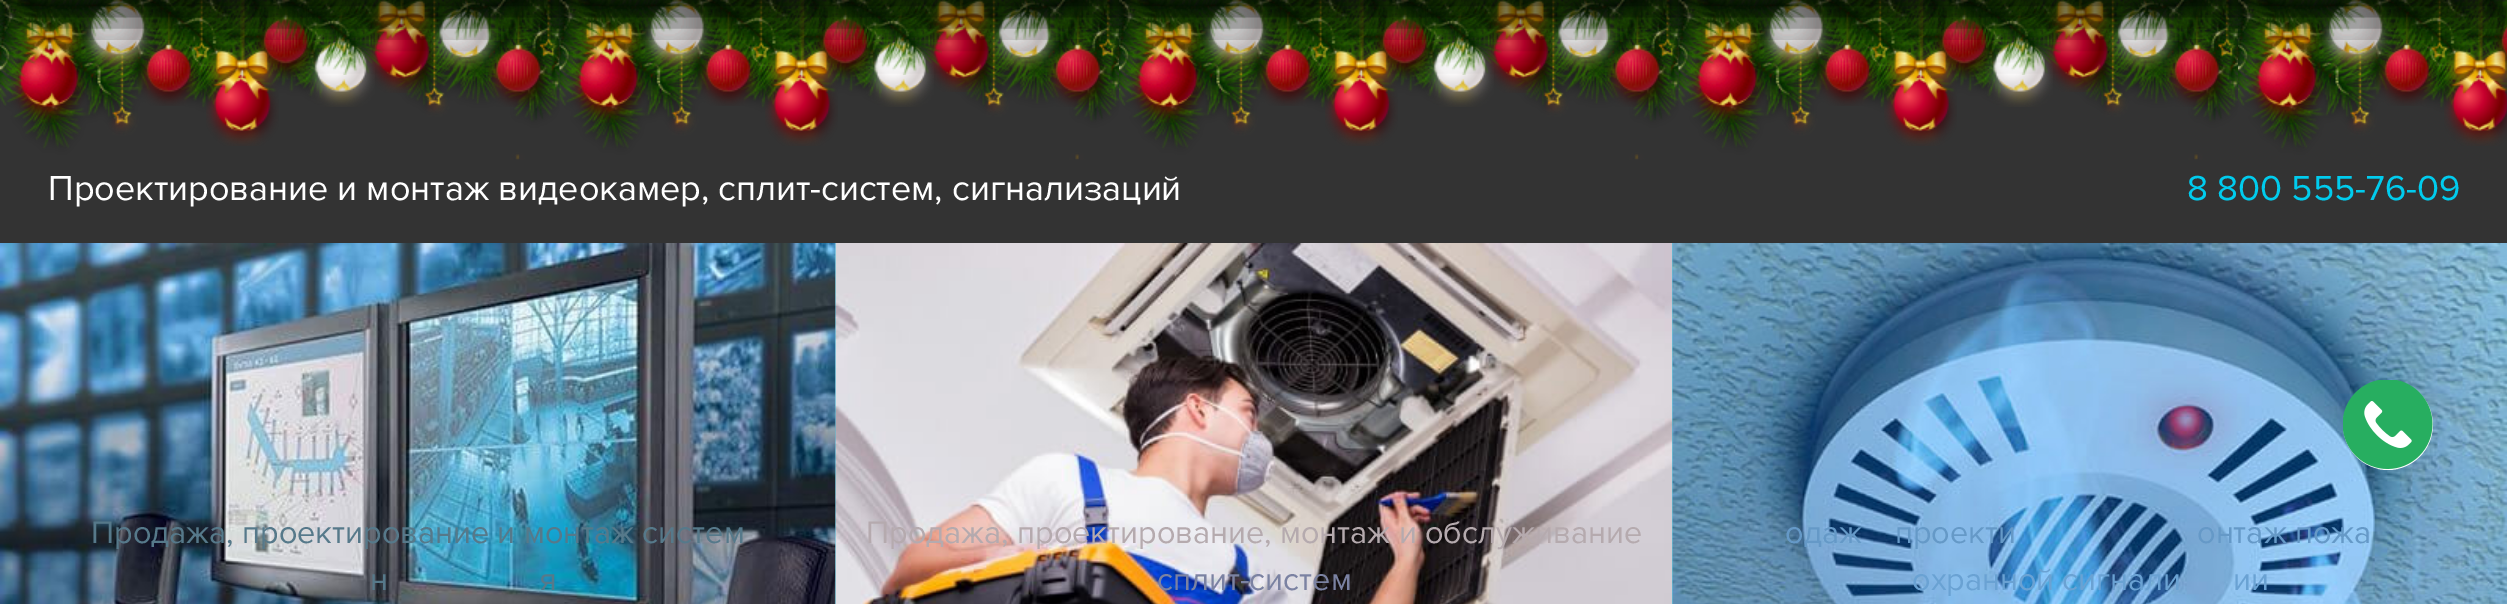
%!PS-Adobe-3.0
%%BoundingBox: 0 0 2507 604
%%LanguageLevel: 3
%%Pages: 1
%%EndComments
%%BeginProlog
/setink { dup -16 bitshift 255 div exch dup -8 bitshift 255 and 255 div exch 255 and 255 div setrgbcolor } def
/usefont { [ exch dup neg 0 0 3 -1 roll 0 0 ] selectfont } def
/setalpha { dup .setfillconstantalpha .setstrokeconstantalpha } def
/disc { newpath 0 360 arc closepath } def
/rrect { 5 dict begin { /r /h /w /y /x } { exch def } forall
  x r add y moveto x w add y 2 copy h add r arct x w add y h add x 1 index r arct
  x y h add x y r arct x y 2 copy exch w add exch r arct closepath end } def
/softshadow { 12 dict begin { /a /b /q /h /w /y /x } { exch def } forall gsave /was 0 def
  9 -2 -9 { dup b mul 4 div /e exch def 1 sub .425 mul 2.718 exch exp 1 add a .99 .min exch div /now exch def
    1 1 now sub 1 was sub div sub setalpha /was now def
    w h .min e 2 mul add 0 gt { x e sub y e sub w e 2 mul add h e 2 mul add
      q e add b .6 mul add w h .min 2 div e add .min 0 .max rrect fill } if } for grestore end } def
/drawimage { 5 dict begin { /h /w /y /x /name } { exch def } forall
  gsave x y translate w h scale
  w h 8 [w 0 0 h 0 0] name (r) file false 3 colorimage grestore end } def
%%EndProlog
%%BeginSetup
<< /PageSize [2507 604] /PageUsesTransparency true >> setpagedevice
%%EndSetup
%%Page: 1 1
0 .pushpdf14devicefilter
0 604 translate 1 -1 scale
4 setmiterlimit
16#FFFFFF setink
0 0 2507 604 rectfill
16#333333 setink
0 0 2507 243 rectfill
(img1.raw) 0 0 2507 160 drawimage
(img3.raw) 11 0 74 123 drawimage
(img2.raw) 0 0 38 106 drawimage
(img5.raw) 81 0 73 72 drawimage
(img4.raw) 37 0 92 40 drawimage
(img6.raw) 206 0 73 146 drawimage
(img7.raw) 255 0 60 78 drawimage
(img13.raw) 306 9 69 98 drawimage
(img8.raw) 265 0 43 46 drawimage
(img10.raw) 365 0 72 93 drawimage
(img9.raw) 307 0 76 75 drawimage
(img11.raw) 431 0 69 74 drawimage
(img12.raw) 138 13 61 93 drawimage
(img16.raw) 488 15 60 92 drawimage
(img14.raw) 433 0 118 42 drawimage
(img15.raw) 550 0 10 103 drawimage
(img18.raw) 570 0 75 123 drawimage
(img17.raw) 559 0 38 106 drawimage
(img20.raw) 640 0 74 72 drawimage
(img19.raw) 597 0 91 40 drawimage
(img21.raw) 765 0 73 146 drawimage
(img22.raw) 814 0 61 78 drawimage
(img28.raw) 866 9 68 98 drawimage
(img23.raw) 825 0 42 46 drawimage
(img25.raw) 926 0 71 92 drawimage
(img24.raw) 867 0 75 75 drawimage
(img26.raw) 990 0 69 74 drawimage
(img27.raw) 698 13 60 93 drawimage
(img31.raw) 1047 15 61 92 drawimage
(img29.raw) 993 0 117 42 drawimage
(img30.raw) 1110 0 9 103 drawimage
(img33.raw) 1130 0 74 123 drawimage
(img32.raw) 1119 0 38 106 drawimage
(img35.raw) 1200 0 73 72 drawimage
(img34.raw) 1156 0 92 40 drawimage
(img36.raw) 1325 0 73 146 drawimage
(img37.raw) 1374 0 60 78 drawimage
(img43.raw) 1425 9 69 98 drawimage
(img38.raw) 1384 0 43 46 drawimage
(img40.raw) 1484 0 72 93 drawimage
(img39.raw) 1426 0 76 75 drawimage
(img41.raw) 1550 0 69 74 drawimage
(img42.raw) 1257 13 61 93 drawimage
(img46.raw) 1607 15 60 92 drawimage
(img44.raw) 1552 0 118 42 drawimage
(img45.raw) 1669 0 10 103 drawimage
(img48.raw) 1689 0 75 123 drawimage
(img47.raw) 1678 0 38 106 drawimage
(img50.raw) 1759 0 74 72 drawimage
(img49.raw) 1716 0 91 40 drawimage
(img51.raw) 1884 0 73 146 drawimage
(img52.raw) 1933 0 61 78 drawimage
(img58.raw) 1985 9 68 98 drawimage
(img53.raw) 1944 0 42 46 drawimage
(img55.raw) 2045 0 71 92 drawimage
(img54.raw) 1986 0 75 75 drawimage
(img56.raw) 2109 0 69 74 drawimage
(img57.raw) 1817 13 60 93 drawimage
(img61.raw) 2166 15 61 92 drawimage
(img59.raw) 2112 0 117 42 drawimage
(img60.raw) 2229 0 9 103 drawimage
(img63.raw) 2249 0 74 123 drawimage
(img62.raw) 2238 0 38 106 drawimage
(img65.raw) 2319 0 73 72 drawimage
(img64.raw) 2275 0 92 40 drawimage
(img66.raw) 2444 0 63 146 drawimage
(img67.raw) 2376 13 61 93 drawimage
(img69.raw) 2493 21 14 51 drawimage
(img68.raw) 2503 12 4 19 drawimage
16#000000 setink
0 -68 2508 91 0 22.5 0.75 softshadow
/ProximaNova-Regular 36 usefont
16#FFFFFF setink
48 200 moveto (Проектирование и монтаж видеокамер, сплит-систем, сигнализаций) show
16#00CCEE setink
2187 200 moveto (8 800 555-76-09) show
(img70.raw) 0 243 836 361 drawimage
/ProximaNova-Regular 32.4 usefont
16#56798A setink
[
    [(Продажа, проектирование и монтаж систем) 91 543]
    [(н) 370 590]
    [(я) 539 590]
] { aload pop moveto show } forall
(img71.raw) 835 243 838 361 drawimage
16#B5AAAE setink
866 543 moveto (Продажа, проектирование, монтаж и обслуживание) show
16#7B82A2 setink
1157 590 moveto (сплит-систем) show
(img72.raw) 1672 243 835 361 drawimage
16#6599C7 setink
[
    [(одаж) 1785 543]
    [(проекти) 1895 543]
    [(онтаж пожа) 2197 543]
] { aload pop moveto show } forall
16#6AA2D3 setink
1912 590 moveto (охранной сигнали) show
2233 590 moveto (ии) show
16#FFFFFF setink
2388 425 45 disc fill
(img73.raw) 2343 380 90 89 drawimage
.poppdf14devicefilter showpage
%%EOF
